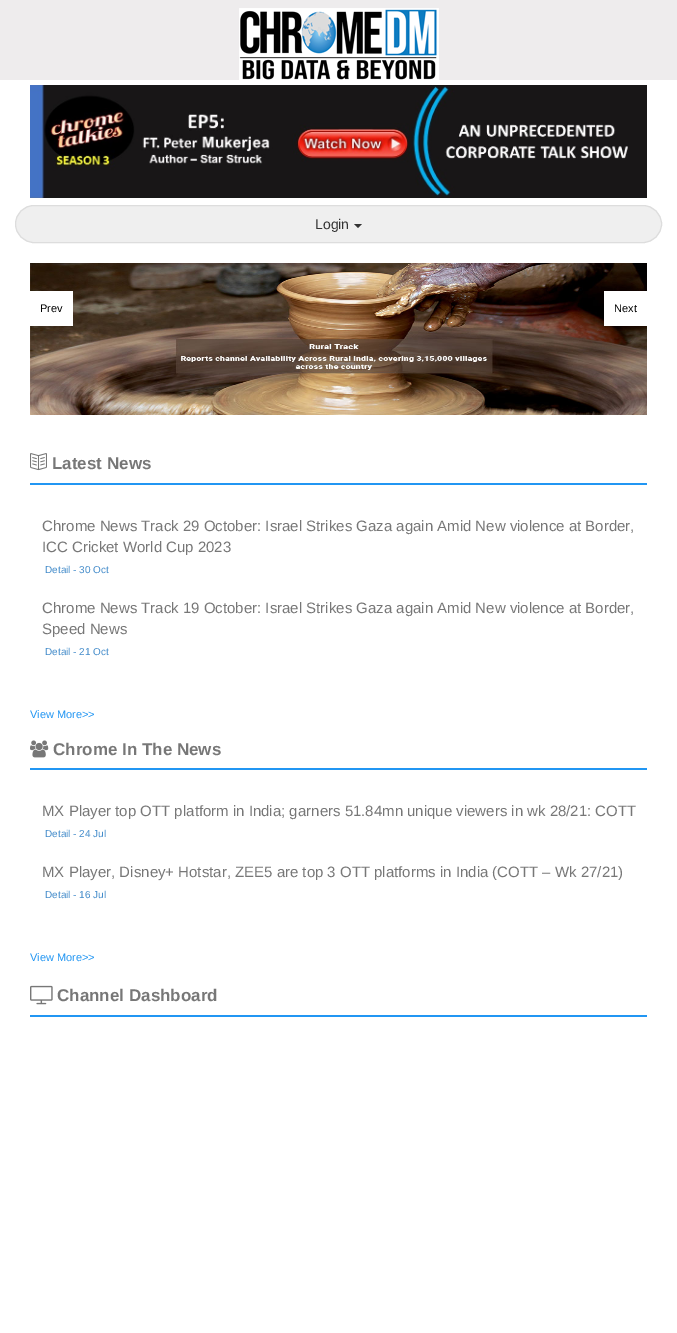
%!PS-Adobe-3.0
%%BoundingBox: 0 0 677 1333
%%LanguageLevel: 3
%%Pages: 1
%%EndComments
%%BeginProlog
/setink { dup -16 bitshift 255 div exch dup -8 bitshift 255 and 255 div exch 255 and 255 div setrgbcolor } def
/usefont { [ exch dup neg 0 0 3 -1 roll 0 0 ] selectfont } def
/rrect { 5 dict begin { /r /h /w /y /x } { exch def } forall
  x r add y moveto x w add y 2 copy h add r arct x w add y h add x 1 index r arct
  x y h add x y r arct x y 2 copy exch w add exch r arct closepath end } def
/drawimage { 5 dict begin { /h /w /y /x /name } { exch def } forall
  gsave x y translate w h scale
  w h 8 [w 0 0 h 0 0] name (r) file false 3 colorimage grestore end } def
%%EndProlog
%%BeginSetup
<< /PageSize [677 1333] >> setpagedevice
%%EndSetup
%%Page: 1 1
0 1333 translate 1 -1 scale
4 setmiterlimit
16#FFFFFF setink
0 0 677 1333 rectfill
16#EEECED setink
0 0 677 80 rectfill
(img1.raw) 239 8 200 72 drawimage
(img2.raw) 30 85 617 113 drawimage
16#EFEFEF setink
15.5 205.5 646 37 18.5 rrect gsave fill grestore
16#DDDDDD setink
stroke
/LiberationSans-Regular 14 usefont
16#333333 setink
315 229 moveto (Login) show
354 224 moveto 362 224 lineto 358 228 lineto closepath fill
(img3.raw) 30 263 617 152 drawimage
16#FFFFFF setink
30 291 43 35 rectfill
/LiberationSans-Regular 11 usefont
16#000000 setink
40 312 moveto (Prev) show
16#FFFFFF setink
604 291 43 35 rectfill
16#000000 setink
614 312 moveto (Next) show
(img4.raw) 30 453 17 18 drawimage
/LiberationSans-Bold 17 usefont
16#777777 setink
52 469 moveto (Latest News) show
16#2196F3 setink
30 483 617 2 rectfill
/LiberationSans-Regular 15 usefont
16#777777 setink
42 531 moveto (Chrome News Track 29 October: Israel Strikes Gaza again Amid New violence at Border,) show
42 552 moveto (ICC Cricket World Cup 2023) show
/LiberationSans-Regular 10 usefont
16#428BCA setink
45 573 moveto (Detail - 30 Oct) show
/LiberationSans-Regular 15 usefont
16#777777 setink
42 613 moveto (Chrome News Track 19 October: Israel Strikes Gaza again Amid New violence at Border,) show
42 634 moveto (Speed News) show
/LiberationSans-Regular 10 usefont
16#428BCA setink
45 655 moveto (Detail - 21 Oct) show
/LiberationSans-Regular 11 usefont
16#2196F3 setink
30 718 moveto (View More>>) show
(img5.raw) 30 740 19 18 drawimage
/LiberationSans-Bold 17 usefont
16#777777 setink
53 755 moveto (Chrome In The News) show
16#2196F3 setink
30 768 617 2 rectfill
/LiberationSans-Regular 15 usefont
16#777777 setink
42 816 moveto (MX Player top OTT platform in India; garners 51.84mn unique viewers in wk 28/21: COTT) show
/LiberationSans-Regular 10 usefont
16#428BCA setink
45 837 moveto (Detail - 24 Jul) show
/LiberationSans-Regular 15 usefont
16#777777 setink
42 877 moveto (MX Player, Disney+ Hotstar, ZEE5 are top 3 OTT platforms in India \(COTT – Wk 27/21\)) show
/LiberationSans-Regular 10 usefont
16#428BCA setink
45 898 moveto (Detail - 16 Jul) show
/LiberationSans-Regular 11 usefont
16#2196F3 setink
30 961 moveto (View More>>) show
(img6.raw) 30 985 23 20 drawimage
/LiberationSans-Bold 17 usefont
16#777777 setink
57 1001 moveto (Channel Dashboard) show
16#2196F3 setink
30 1015 617 2 rectfill
showpage
%%EOF
